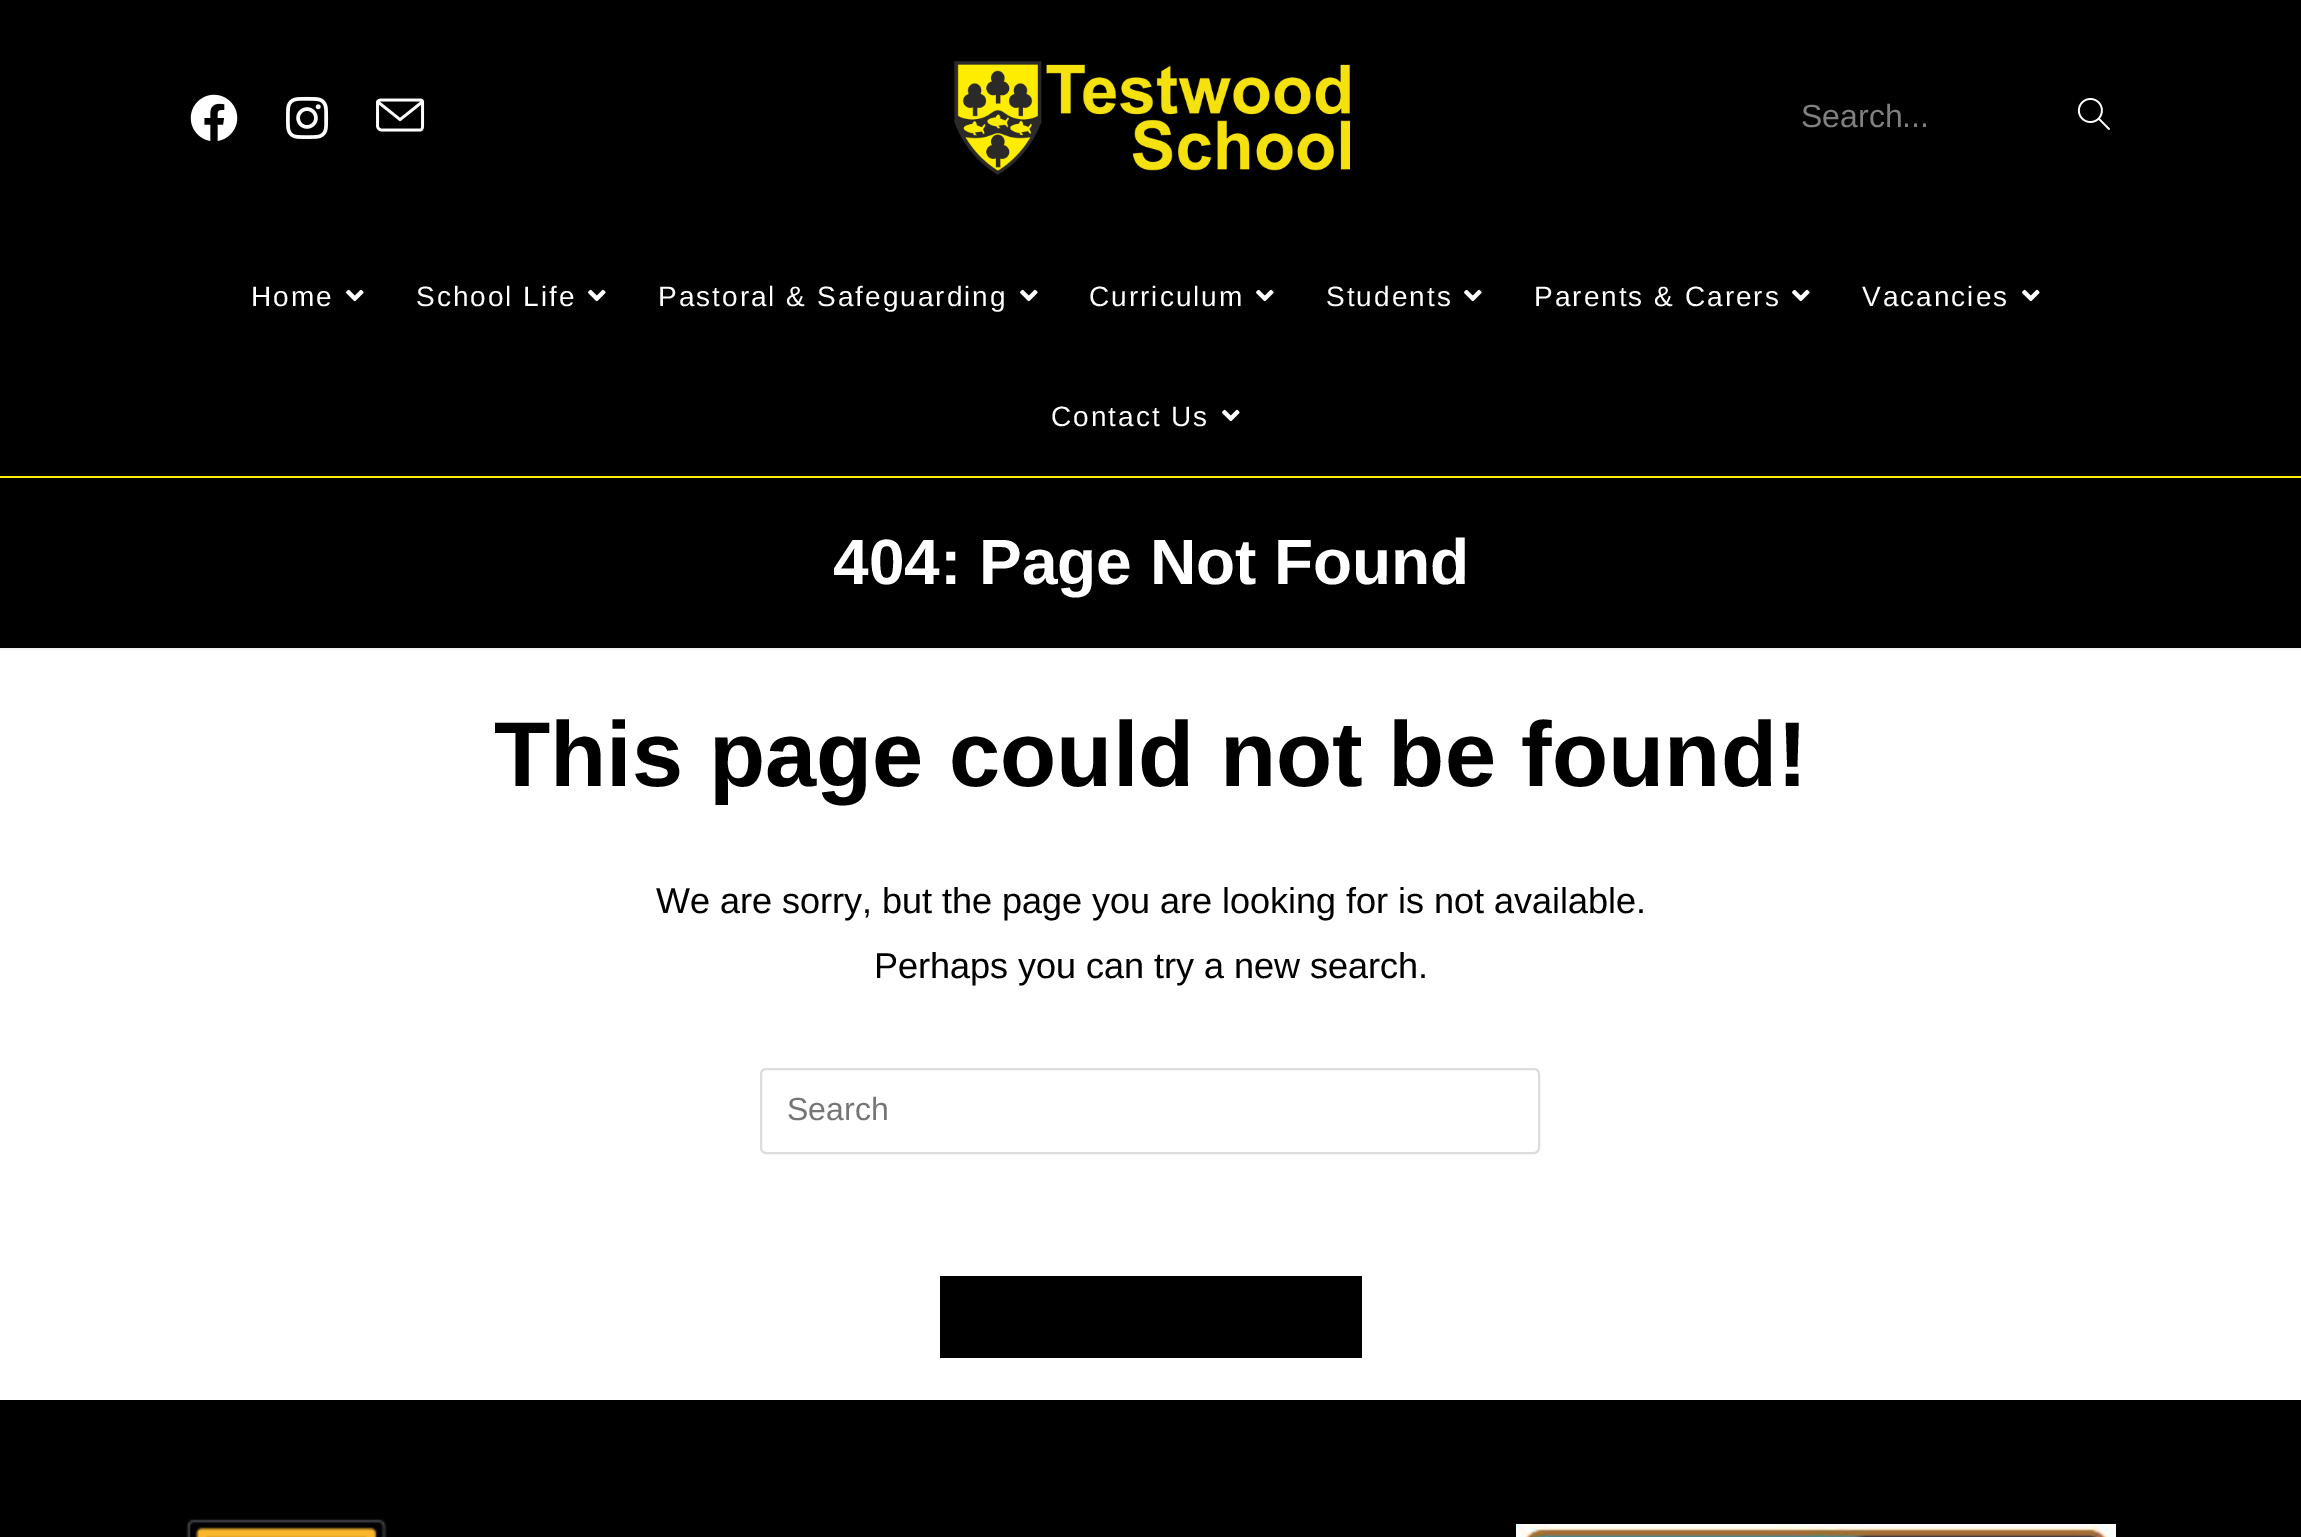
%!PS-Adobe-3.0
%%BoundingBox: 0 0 2301 1537
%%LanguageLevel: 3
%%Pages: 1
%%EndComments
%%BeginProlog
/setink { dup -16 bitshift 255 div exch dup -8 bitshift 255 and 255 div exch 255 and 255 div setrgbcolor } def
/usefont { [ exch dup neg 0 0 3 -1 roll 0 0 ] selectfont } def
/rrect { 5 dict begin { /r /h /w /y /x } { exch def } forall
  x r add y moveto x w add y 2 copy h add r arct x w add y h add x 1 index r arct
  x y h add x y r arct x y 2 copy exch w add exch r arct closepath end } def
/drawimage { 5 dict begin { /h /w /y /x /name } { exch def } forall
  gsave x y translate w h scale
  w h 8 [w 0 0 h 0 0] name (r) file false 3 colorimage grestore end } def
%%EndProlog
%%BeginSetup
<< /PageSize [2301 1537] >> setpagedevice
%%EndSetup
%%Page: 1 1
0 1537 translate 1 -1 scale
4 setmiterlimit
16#FFFFFF setink
0 0 2301 1537 rectfill
16#FEED00 setink
0 476 2301 2 rectfill
16#000000 setink
0 0 2301 476 rectfill
(img1.raw) 190 94 48 47 drawimage
(img2.raw) 286 96 43 43 drawimage
(img3.raw) 376 98 49 34 drawimage
(img4.raw) 954 61 396 114 drawimage
/LiberationSans-Regular 32 usefont
16#808080 setink
1801 127 moveto (Search...) show
(img5.raw) 2077 98 33 32 drawimage
/LiberationSans-Regular 28 usefont
16#FFFFFF setink
251 306 moveto 2 0 (Home) ashow
(img6.raw) 346 289 18 13 drawimage
416 306 moveto 2 0 (School Life) ashow
(img6.raw) 588 289 18 13 drawimage
658 306 moveto 2 0 (Pastoral & Safeguarding) ashow
(img6.raw) 1020 289 18 13 drawimage
1089 306 moveto 2 0 (Curriculum) ashow
(img6.raw) 1256 289 18 13 drawimage
1326 306 moveto 2 0 (Students) ashow
(img6.raw) 1464 289 18 13 drawimage
1534 306 moveto 2 0 (Parents & Carers) ashow
(img6.raw) 1792 289 18 13 drawimage
1862 306 moveto 2 0 (Vacancies) ashow
(img6.raw) 2022 289 18 13 drawimage
1051 426 moveto 2 0 (Contact Us) ashow
(img6.raw) 1222 409 18 13 drawimage
16#000000 setink
0 478 2301 170 rectfill
16#F1F1F1 setink
0 648 2301 2 rectfill
/LiberationSans-Bold 64 usefont
16#FFFFFF setink
833 584 moveto (404: Page Not Found) show
/LiberationSans-Bold 92 usefont
16#000000 setink
494 786 moveto (This page could not be found!) show
/LiberationSans-Regular 36 usefont
656 913 moveto (We are sorry, but the page you are looking for is not available.) show
874 978 moveto (Perhaps you can try a new search.) show
16#DDDDDD setink
2 setlinewidth
761 1069 778 84 5 rrect stroke
/LiberationSans-Regular 32 usefont
16#757575 setink
787 1120 moveto (Search) show
16#000000 setink
940 1276 422 82 rectfill
0 1400 2301 137 rectfill
(img7.raw) 186 1519 201 18 drawimage
(img8.raw) 1516 1524 600 13 drawimage
showpage
%%EOF
